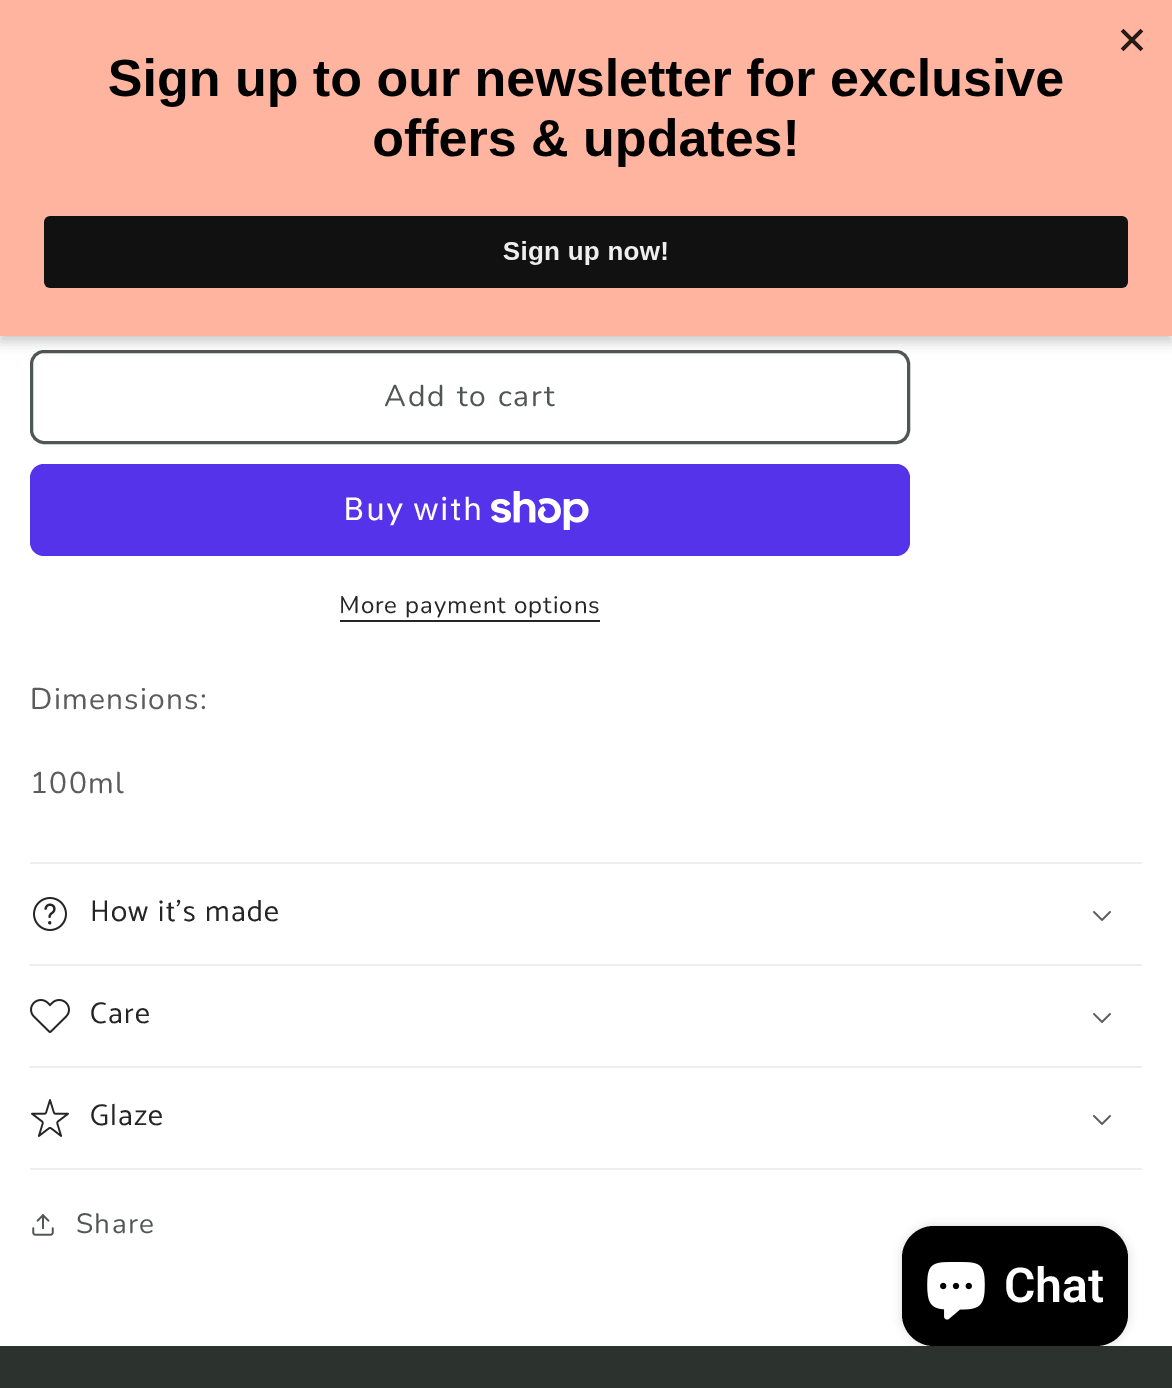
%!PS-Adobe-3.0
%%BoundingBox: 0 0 1172 1388
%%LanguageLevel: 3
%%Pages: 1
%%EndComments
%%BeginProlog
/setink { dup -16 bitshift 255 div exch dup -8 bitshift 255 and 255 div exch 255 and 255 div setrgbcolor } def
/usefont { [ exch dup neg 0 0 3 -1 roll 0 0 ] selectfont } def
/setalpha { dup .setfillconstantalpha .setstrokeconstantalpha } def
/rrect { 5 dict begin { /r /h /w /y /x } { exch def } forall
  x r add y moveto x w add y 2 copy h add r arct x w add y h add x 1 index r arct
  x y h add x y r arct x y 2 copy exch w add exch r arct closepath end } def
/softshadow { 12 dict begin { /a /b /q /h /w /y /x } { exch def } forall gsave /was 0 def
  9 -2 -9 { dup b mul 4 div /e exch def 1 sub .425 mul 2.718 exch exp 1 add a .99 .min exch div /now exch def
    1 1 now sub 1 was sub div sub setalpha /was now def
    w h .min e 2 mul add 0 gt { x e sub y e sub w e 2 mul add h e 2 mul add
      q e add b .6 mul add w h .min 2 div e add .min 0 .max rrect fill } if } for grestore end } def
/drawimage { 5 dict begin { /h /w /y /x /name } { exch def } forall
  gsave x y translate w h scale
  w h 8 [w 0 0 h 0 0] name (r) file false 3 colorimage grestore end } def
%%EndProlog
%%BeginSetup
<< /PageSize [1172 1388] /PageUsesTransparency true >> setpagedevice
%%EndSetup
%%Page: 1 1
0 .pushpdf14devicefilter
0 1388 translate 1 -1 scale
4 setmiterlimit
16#FFFFFF setink
0 0 1172 1388 rectfill
16#505655 setink
3 setlinewidth
31.5 351.5 877 91 12.5 rrect stroke
16#000000 setink
0 6 1172 336 0 6 0.2 softshadow
(img1.raw) 0 0 1172 336 drawimage
/Nunito-Regular 30 usefont
16#505655 setink
384 406 moveto 2 0 (Add to cart) ashow
16#5433EB setink
30 464 880 92 14 rrect fill
/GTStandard-Regular 32 usefont
16#FFFFFF setink
343 520 moveto 1.25 0 (Buy with) ashow
(img2.raw) 491 491 98 39 drawimage
/Nunito-Regular 24 usefont
16#252525 setink
339 613 moveto 1 0 (More payment options) ashow
340 620 260 2 rectfill
/Nunito-Regular 30 usefont
16#5C5C5C setink
30 709 moveto 1.25 0 (Dimensions:) ashow
30 793 moveto 1.25 0 (100ml) ashow
16#EEEEEE setink
30 862 1112 2 rectfill
30 964 1112 2 rectfill
(img3.raw) 33 897 34 34 drawimage
/Catamaran-Regular 30 usefont
16#252525 setink
90 921 moveto 1.25 0 (How it’s made) ashow
(img4.raw) 1093 911 18 10 drawimage
16#EEEEEE setink
30 1066 1112 2 rectfill
(img5.raw) 30 999 40 34 drawimage
16#252525 setink
90 1023 moveto 1.25 0 (Care) ashow
(img4.raw) 1093 1013 18 10 drawimage
16#EEEEEE setink
30 1168 1112 2 rectfill
(img6.raw) 31 1099 38 38 drawimage
16#252525 setink
90 1125 moveto 1.25 0 (Glaze) ashow
(img4.raw) 1093 1115 18 10 drawimage
(img7.raw) 32 1214 22 22 drawimage
/Nunito-Regular 28 usefont
16#505655 setink
76 1233 moveto 1.25 0 (Share) ashow
16#2C332F setink
0 1346 1172 42 rectfill
16#000000 setink
902 1226 226 120 32 5 0.15 softshadow
902 1226 226 120 32 rrect fill
(img8.raw) 927 1262 58 58 drawimage
/Roboto-SemiBold 48 usefont
16#FFFFFF setink
1004 1302 moveto (Chat) show
.poppdf14devicefilter showpage
%%EOF
